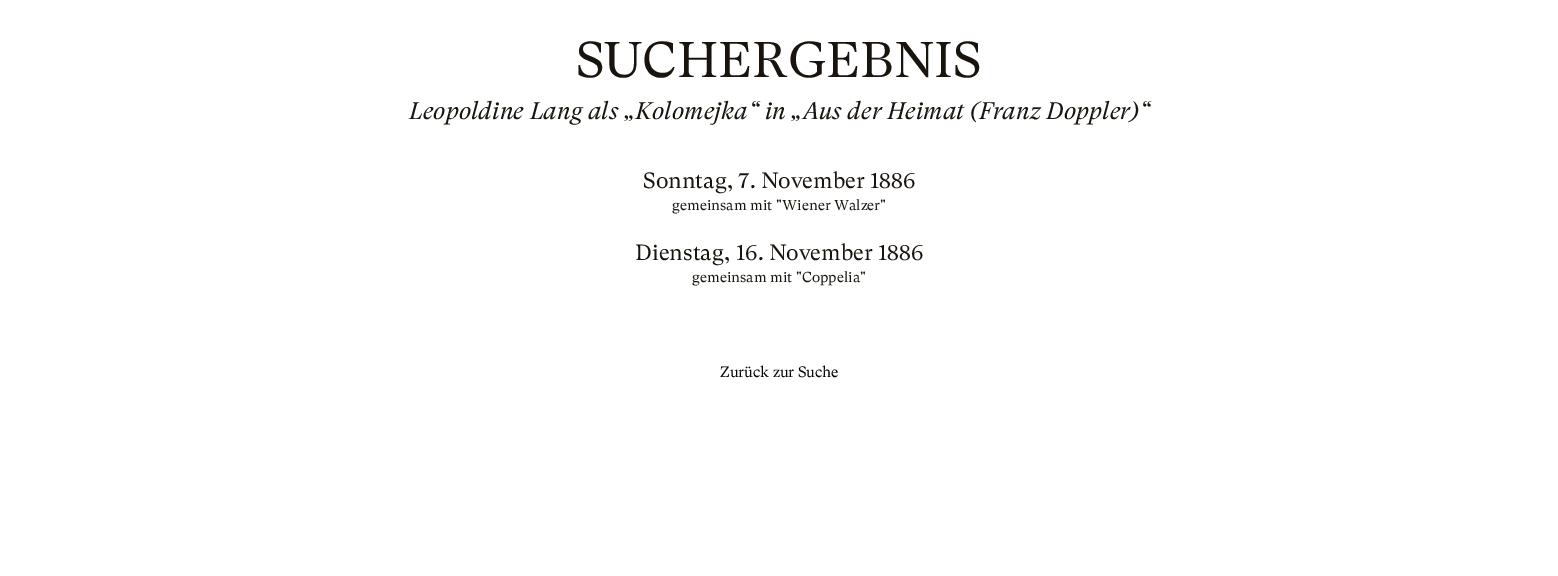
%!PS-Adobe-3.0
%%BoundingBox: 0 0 1558 576
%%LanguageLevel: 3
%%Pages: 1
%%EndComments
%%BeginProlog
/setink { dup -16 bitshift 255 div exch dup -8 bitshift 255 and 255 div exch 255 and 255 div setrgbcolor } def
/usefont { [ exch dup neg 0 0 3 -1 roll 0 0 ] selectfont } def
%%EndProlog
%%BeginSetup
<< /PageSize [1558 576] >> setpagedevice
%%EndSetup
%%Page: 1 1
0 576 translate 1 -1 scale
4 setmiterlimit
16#FFFFFF setink
0 0 1558 576 rectfill
/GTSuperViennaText-Regular 50 usefont
16#19140E setink
576 77 moveto (SUCHERGEBNIS) show
/GTSuperViennaText-Italic 24 usefont
409 119 moveto (Leopoldine Lang als „Kolomejka“ in „Aus der Heimat \(Franz Doppler\)“) show
/GTSuperViennaText-Regular 22 usefont
643 188 moveto (Sonntag, 7. November 1886) show
/GTSuperViennaText-Regular 14.4 usefont
672 210 moveto (gemeinsam mit "Wiener Walzer") show
/GTSuperViennaText-Regular 22 usefont
635 260 moveto (Dienstag, 16. November 1886) show
/GTSuperViennaText-Regular 14.4 usefont
692 282 moveto (gemeinsam mit "Coppelia") show
/GTSuperViennaText-Regular 15 usefont
16#000000 setink
720 377 moveto (Zurück zur Suche) show
showpage
%%EOF
